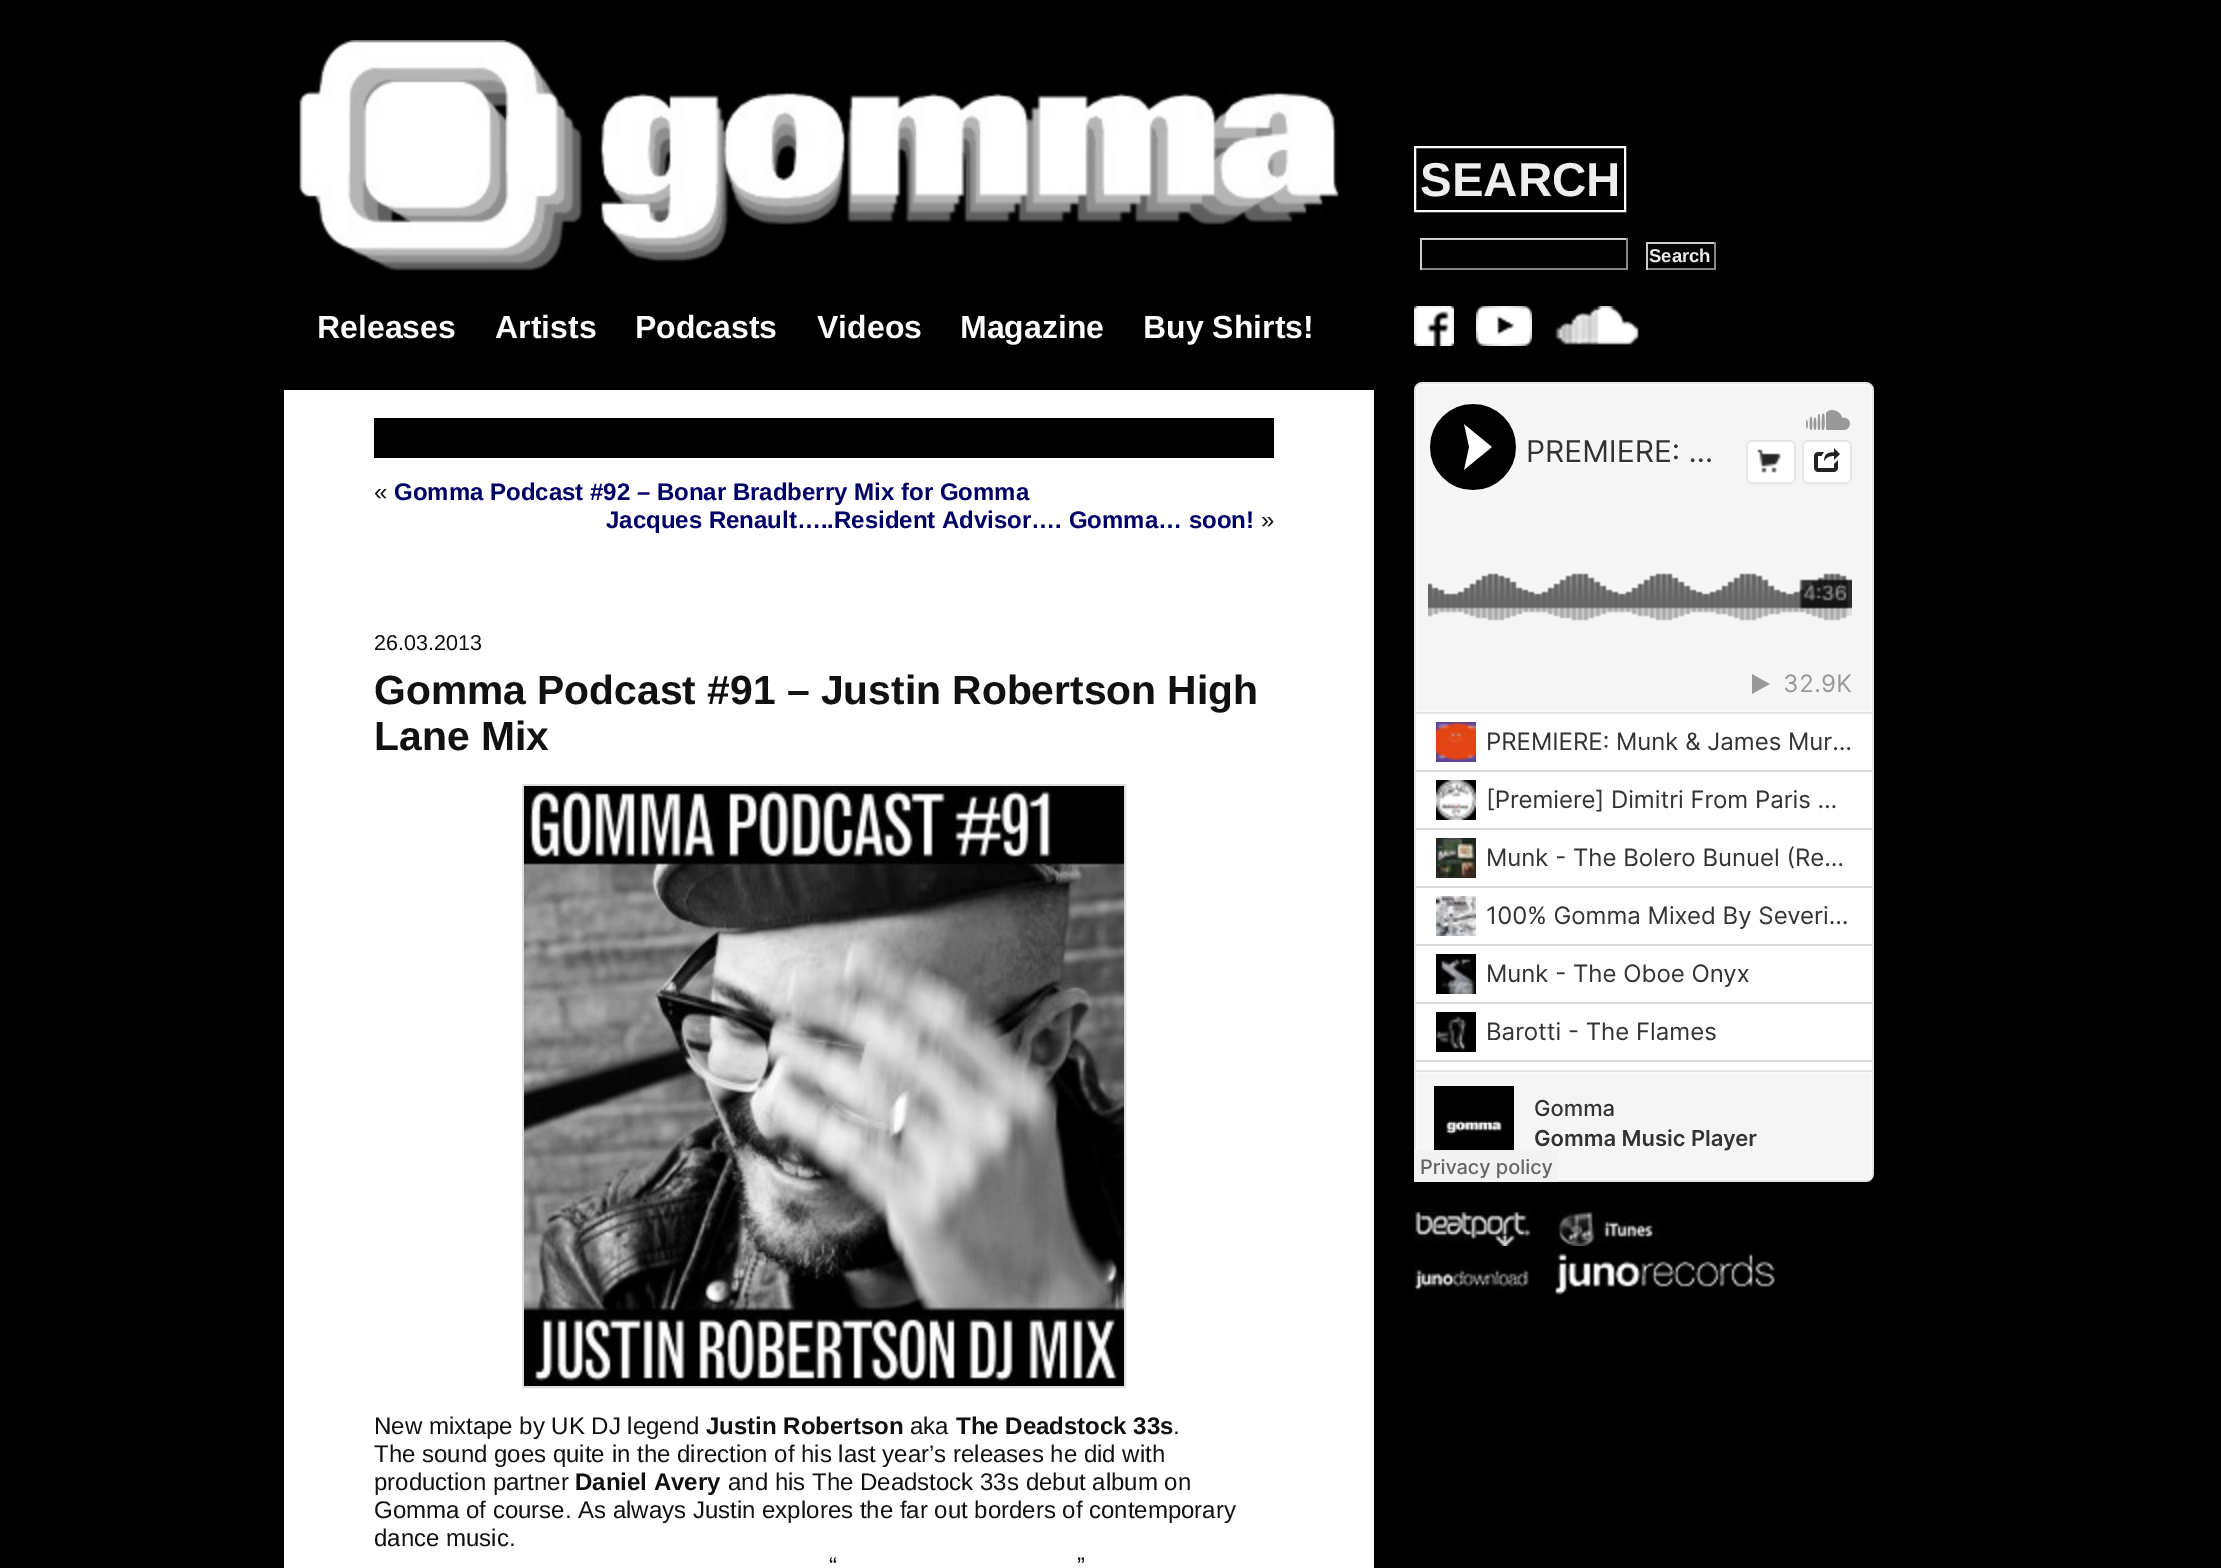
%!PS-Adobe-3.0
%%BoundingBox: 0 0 2221 1568
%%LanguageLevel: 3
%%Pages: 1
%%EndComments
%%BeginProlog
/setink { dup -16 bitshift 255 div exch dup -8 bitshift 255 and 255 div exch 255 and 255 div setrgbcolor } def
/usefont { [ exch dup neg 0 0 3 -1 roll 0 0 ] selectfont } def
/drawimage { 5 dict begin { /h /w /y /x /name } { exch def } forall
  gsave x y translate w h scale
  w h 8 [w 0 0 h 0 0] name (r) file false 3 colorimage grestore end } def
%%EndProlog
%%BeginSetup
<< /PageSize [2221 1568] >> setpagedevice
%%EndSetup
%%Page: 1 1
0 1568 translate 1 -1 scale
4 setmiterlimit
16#000000 setink
0 0 2221 1568 rectfill
16#FFFFFF setink
2 setlinewidth
1415 147 210 64 rectstroke
/LiberationSans-Bold 47.5 usefont
16#EEEEEE setink
1420 196 moveto (SEARCH) show
[
    [1420 238 208 2 16#CCCCCC]
    [1626 238 2 32 16#888888]
    [1420 268 208 2 16#888888]
    [1420 238 2 32 16#CCCCCC]
    [1646 242 70 2 16#CCCCCC]
    [1714 242 2 28 16#888888]
    [1646 268 70 2 16#888888]
    [1646 242 2 28 16#CCCCCC]
] { aload pop setink rectfill } forall
/LiberationSans-Bold 18.5 usefont
16#EEEEEE setink
1649 262 moveto (Search) show
(img1.raw) 1414 306 40 40 drawimage
(img2.raw) 1476 306 56 40 drawimage
(img3.raw) 1555 306 84 39 drawimage
(img4.raw) 1414 382 460 800 drawimage
(img5.raw) 1414 1212 116 34 drawimage
(img6.raw) 1557 1212 105 34 drawimage
(img7.raw) 1414 1266 115 25 drawimage
(img8.raw) 1554 1253 221 42 drawimage
(img9.raw) 299 40 1040 231 drawimage
/LiberationSans-Bold 32 usefont
16#FFFFFF setink
[
    [(Releases) 317 338]
    [(Artists) 495 338]
    [(Podcasts) 635 338]
    [(Videos) 817 338]
    [(Magazine) 960 338]
    [(Buy Shirts!) 1143 338]
] { aload pop moveto show } forall
284 390 1090 1178 rectfill
16#000000 setink
374 418 900 40 rectfill
/LiberationSans-Regular 24 usefont
16#111111 setink
374 500 moveto («) show
/LiberationSans-Bold 24 usefont
16#000066 setink
394 500 moveto (Gomma Podcast #92 – Bonar Bradberry Mix for Gomma) show
606 528 moveto (Jacques Renault…..Resident Advisor…. Gomma… soon!) show
/LiberationSans-Regular 24 usefont
16#111111 setink
1261 528 moveto (») show
/LiberationSans-Regular 21.5 usefont
374 650 moveto (26.03.2013) show
/LiberationSans-Bold 40.8 usefont
374 704 moveto (Gomma Podcast #91 – Justin Robertson High) show
374 750 moveto (Lane Mix) show
16#DDDDDD setink
523 785 602 602 rectstroke
(img10.raw) 524 786 600 600 drawimage
/LiberationSans-Regular 24 usefont
16#111111 setink
374 1434 moveto (New mixtape by UK DJ legend) show
/LiberationSans-Bold 24 usefont
706 1434 moveto (Justin Robertson) show
/LiberationSans-Regular 24 usefont
910 1434 moveto (aka) show
/LiberationSans-Bold 24 usefont
956 1434 moveto (The Deadstock 33s) show
/LiberationSans-Regular 24 usefont
[
    [(.) 1173 1434]
    [(The sound goes quite in the direction of his last year’s releases he did with) 374 1462]
    [(production partner) 374 1490]
] { aload pop moveto show } forall
/LiberationSans-Bold 24 usefont
575 1490 moveto (Daniel Avery) show
/LiberationSans-Regular 24 usefont
[
    [(and his The Deadstock 33s debut album on) 728 1490]
    [(Gomma of course. As always Justin explores the far out borders of contemporary) 374 1518]
    [(dance music.) 374 1546]
    [(“) 829 1574]
    [(”) 1077 1574]
] { aload pop moveto show } forall
showpage
%%EOF
